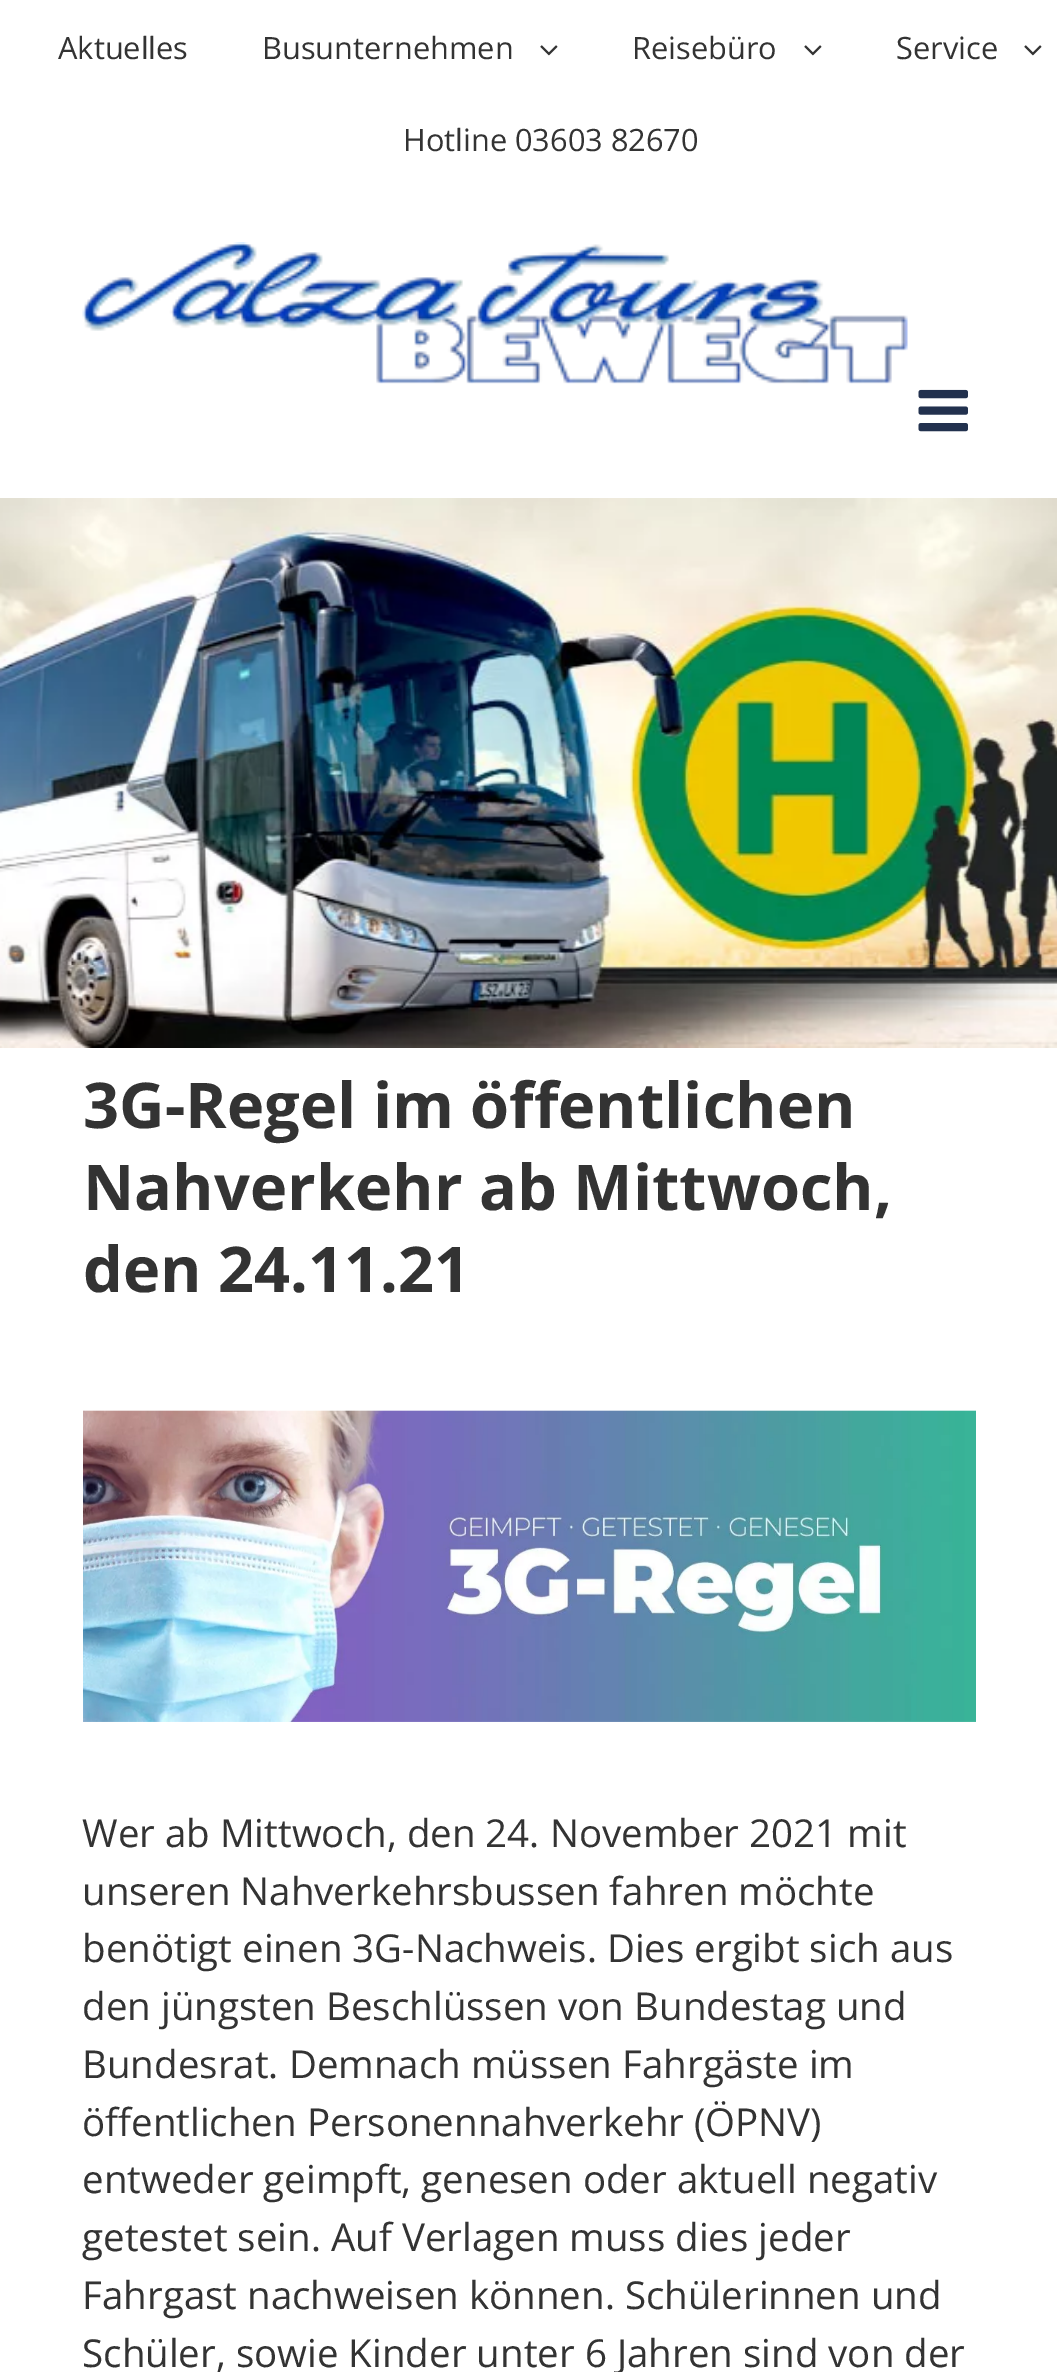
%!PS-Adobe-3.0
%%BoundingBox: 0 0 1057 2372
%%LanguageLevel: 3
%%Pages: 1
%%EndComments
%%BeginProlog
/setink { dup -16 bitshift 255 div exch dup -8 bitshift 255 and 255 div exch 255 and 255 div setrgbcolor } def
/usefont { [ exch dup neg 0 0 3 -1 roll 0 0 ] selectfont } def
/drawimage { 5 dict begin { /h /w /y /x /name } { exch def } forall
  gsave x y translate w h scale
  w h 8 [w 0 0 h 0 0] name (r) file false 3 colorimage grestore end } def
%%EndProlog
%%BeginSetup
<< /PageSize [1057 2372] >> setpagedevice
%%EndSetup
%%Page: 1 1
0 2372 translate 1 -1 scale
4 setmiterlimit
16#FFFFFF setink
0 0 1057 2372 rectfill
/OpenSans-Regular 30.75 usefont
16#333333 setink
58 59 moveto (Aktuelles) show
262 59 moveto (Busunternehmen) show
(img1.raw) 540 45 18 11 drawimage
632 59 moveto (Reisebüro) show
(img1.raw) 804 45 18 11 drawimage
896 59 moveto (Service) show
(img1.raw) 1024 45 18 11 drawimage
403 151 moveto (Hotline 03603 82670) show
(img2.raw) 82 242 826 142 drawimage
(img3.raw) 918 389 50 43 drawimage
(img4.raw) 0 498 1057 550 drawimage
/OpenSans-Bold 63.1 usefont
[
    [(3G-Regel im öffentlichen) 83 1128]
    [(Nahverkehr ab Mittwoch,) 83 1210]
    [(den 24.11.21) 83 1292]
] { aload pop moveto show } forall
(img5.raw) 83 1410 893 312 drawimage
/OpenSans-Regular 38.5 usefont
[
    [(Wer ab Mittwoch, den 24. November 2021 mit) 82 1847]
    [(unseren Nahverkehrsbussen fahren möchte) 82 1905]
    [(benötigt einen 3G-Nachweis. Dies ergibt sich aus) 82 1962]
    [(den jüngsten Beschlüssen von Bundestag und) 82 2020]
    [(Bundesrat. Demnach müssen Fahrgäste im) 82 2078]
    [(öffentlichen Personennahverkehr \(ÖPNV\)) 82 2136]
    [(entweder geimpft, genesen oder aktuell negativ) 82 2193]
    [(getestet sein. Auf Verlagen muss dies jeder) 82 2251]
    [(Fahrgast nachweisen können. Schülerinnen und) 82 2309]
    [(Schüler, sowie Kinder unter 6 Jahren sind von der) 82 2367]
] { aload pop moveto show } forall
showpage
%%EOF
